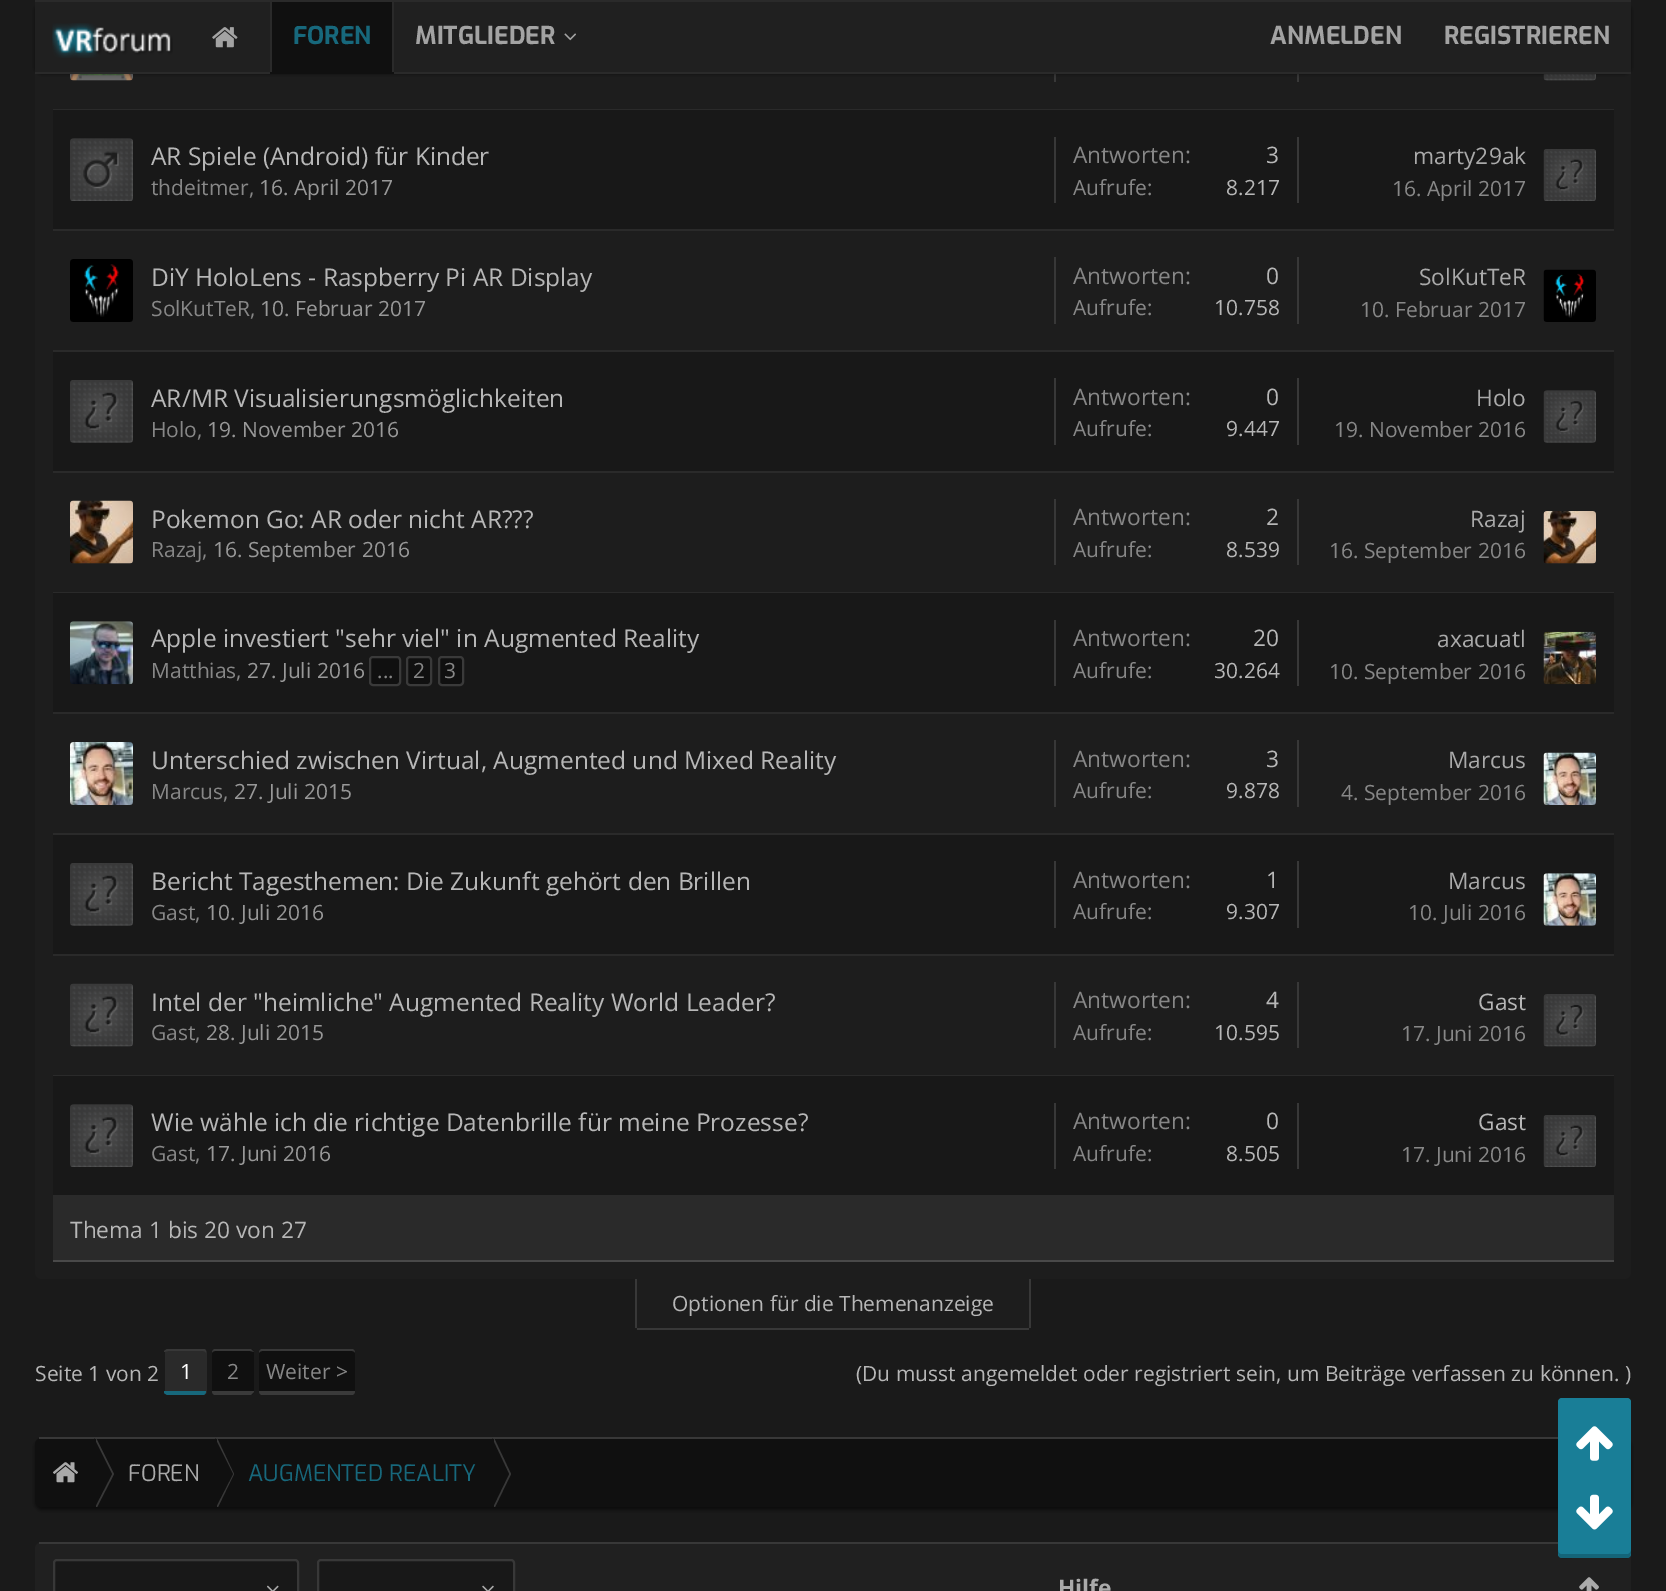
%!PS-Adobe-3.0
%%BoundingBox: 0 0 1666 1591
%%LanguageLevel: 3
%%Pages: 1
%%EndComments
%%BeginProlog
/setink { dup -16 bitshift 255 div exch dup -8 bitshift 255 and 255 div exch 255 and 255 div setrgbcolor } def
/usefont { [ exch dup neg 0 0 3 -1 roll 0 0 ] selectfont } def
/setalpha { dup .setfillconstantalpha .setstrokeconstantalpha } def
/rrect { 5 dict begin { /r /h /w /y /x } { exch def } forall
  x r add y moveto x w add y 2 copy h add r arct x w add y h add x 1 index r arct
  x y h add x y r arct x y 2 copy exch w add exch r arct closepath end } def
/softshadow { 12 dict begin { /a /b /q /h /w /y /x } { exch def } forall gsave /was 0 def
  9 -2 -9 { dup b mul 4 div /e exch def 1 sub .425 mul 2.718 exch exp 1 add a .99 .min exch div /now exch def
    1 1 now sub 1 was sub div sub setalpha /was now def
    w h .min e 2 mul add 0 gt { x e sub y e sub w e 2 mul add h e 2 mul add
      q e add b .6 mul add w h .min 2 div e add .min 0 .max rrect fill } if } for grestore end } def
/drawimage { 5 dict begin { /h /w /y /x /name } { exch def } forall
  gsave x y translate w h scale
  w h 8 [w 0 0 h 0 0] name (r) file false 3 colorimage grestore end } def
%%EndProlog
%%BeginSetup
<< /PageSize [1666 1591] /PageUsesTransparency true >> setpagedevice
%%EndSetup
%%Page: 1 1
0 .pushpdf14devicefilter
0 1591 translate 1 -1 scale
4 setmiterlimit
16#1A1A1A setink
0 0 1666 1591 rectfill
16#1D1D1D setink
35 -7 1596 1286 7 rrect fill
16#202020 setink
70 18 63 63 4 rrect fill
(img4.raw) 70 74 63 7 drawimage
16#383838 setink
1297 74 2 8 rectfill
1054 74 2 8 rectfill
16#202020 setink
1544 28 52 53 4 rrect fill
(img5.raw) 1543 74 53 7 drawimage
16#000000 setink
35 4 1596 70 7 2 0.5 softshadow
[
    [35 2 1596 70 16#202020]
    [35 0 1596 2 16#2A2A2A]
    [35 72 1596 2 16#2A2A2A]
] { aload pop setink rectfill } forall
(img1.raw) 52 23 121 35 drawimage
(img2.raw) 212 27 26 21 drawimage
16#101010 setink
270 72 moveto 270 74 lineto 394 74 lineto 394 4 lineto 394 72 lineto closepath fill
[
    [272 2 120 70 16#101010]
    [392 2 2 70 16#2A2A2A]
    [270 2 2 70 16#2A2A2A]
] { aload pop setink rectfill } forall
/Exo-Bold 24.5 usefont
16#17687C setink
293 44 moveto (FOREN) show
16#A3A3A3 setink
415 44 moveto (MITGLIEDER) show
(img3.raw) 564 33 12 8 drawimage
1270 44 moveto (ANMELDEN) show
1444 44 moveto (REGISTRIEREN) show
[
    [53 109 1561 1 16#2A2A2A]
    [53 110 1561 119 16#181818]
    [53 229 1561 2 16#2A2A2A]
] { aload pop setink rectfill } forall
16#202020 setink
70 138 63 63 4 rrect fill
(img6.raw) 70 138 63 63 drawimage
/OpenSans-Regular 24.5 usefont
16#B7B7B7 setink
151 165 moveto (AR Spiele \(Android\) für Kinder) show
/OpenSans-Regular 21 usefont
16#878787 setink
151 195 moveto (thdeitmer,) show
16#989898 setink
259 195 moveto (16. April 2017) show
16#383838 setink
1297 137 2 66 rectfill
1054 137 2 66 rectfill
/OpenSans-Regular 22.75 usefont
16#878787 setink
1073 163 moveto (Antworten:) show
16#B7B7B7 setink
1266 163 moveto (3) show
/OpenSans-Regular 21 usefont
16#878787 setink
1073 195 moveto (Aufrufe:) show
16#B7B7B7 setink
1226 195 moveto (8.217) show
/OpenSans-Regular 22.75 usefont
16#AAAAAA setink
1413 164 moveto (marty29ak) show
(img7.raw) 1543 149 53 52 drawimage
/OpenSans-Regular 21 usefont
16#878787 setink
1392 196 moveto (16. April 2017) show
16#2A2A2A setink
53 350 1561 2 rectfill
(img8.raw) 70 259 63 63 drawimage
/OpenSans-Regular 24.5 usefont
16#B7B7B7 setink
151 286 moveto (DiY HoloLens - Raspberry Pi AR Display) show
/OpenSans-Regular 21 usefont
16#878787 setink
151 316 moveto (SolKutTeR,) show
16#989898 setink
260 316 moveto (10. Februar 2017) show
16#383838 setink
1297 257 2 67 rectfill
1054 257 2 67 rectfill
/OpenSans-Regular 22.75 usefont
16#878787 setink
1073 284 moveto (Antworten:) show
16#B7B7B7 setink
1266 284 moveto (0) show
/OpenSans-Regular 21 usefont
16#878787 setink
1073 315 moveto (Aufrufe:) show
16#B7B7B7 setink
1214 315 moveto (10.758) show
/OpenSans-Regular 22.75 usefont
16#AAAAAA setink
1419 285 moveto (SolKutTeR) show
(img9.raw) 1543 269 53 53 drawimage
/OpenSans-Regular 21 usefont
16#878787 setink
1360 317 moveto (10. Februar 2017) show
16#181818 setink
53 352 1561 119 rectfill
16#2A2A2A setink
53 471 1561 2 rectfill
16#202020 setink
70 380 63 63 4 rrect fill
(img10.raw) 70 380 63 63 drawimage
/OpenSans-Regular 24.5 usefont
16#B7B7B7 setink
151 407 moveto (AR/MR Visualisierungsmöglichkeiten) show
/OpenSans-Regular 21 usefont
16#878787 setink
151 437 moveto (Holo,) show
16#989898 setink
207 437 moveto (19. November 2016) show
16#383838 setink
1297 378 2 67 rectfill
1054 378 2 67 rectfill
/OpenSans-Regular 22.75 usefont
16#878787 setink
1073 405 moveto (Antworten:) show
16#B7B7B7 setink
1266 405 moveto (0) show
/OpenSans-Regular 21 usefont
16#878787 setink
1073 436 moveto (Aufrufe:) show
16#B7B7B7 setink
1226 436 moveto (9.447) show
/OpenSans-Regular 22.75 usefont
16#AAAAAA setink
1476 406 moveto (Holo) show
16#202020 setink
1544 390 52 53 4 rrect fill
(img11.raw) 1543 390 53 53 drawimage
/OpenSans-Regular 21 usefont
16#878787 setink
1334 437 moveto (19. November 2016) show
16#2A2A2A setink
53 592 1561 1 rectfill
16#202020 setink
70 501 63 63 4 rrect fill
(img12.raw) 70 500 63 64 drawimage
/OpenSans-Regular 24.5 usefont
16#B7B7B7 setink
151 528 moveto (Pokemon Go: AR oder nicht AR???) show
/OpenSans-Regular 21 usefont
16#878787 setink
151 557 moveto (Razaj,) show
16#989898 setink
213 557 moveto (16. September 2016) show
16#383838 setink
1297 499 2 66 rectfill
1054 499 2 66 rectfill
/OpenSans-Regular 22.75 usefont
16#878787 setink
1073 525 moveto (Antworten:) show
16#B7B7B7 setink
1266 525 moveto (2) show
/OpenSans-Regular 21 usefont
16#878787 setink
1073 557 moveto (Aufrufe:) show
16#B7B7B7 setink
1226 557 moveto (8.539) show
/OpenSans-Regular 22.75 usefont
16#AAAAAA setink
1470 527 moveto (Razaj) show
16#202020 setink
1544 511 52 53 4 rrect fill
(img13.raw) 1543 511 53 53 drawimage
/OpenSans-Regular 21 usefont
16#878787 setink
1329 558 moveto (16. September 2016) show
16#181818 setink
53 593 1561 119 rectfill
16#2A2A2A setink
53 712 1561 2 rectfill
16#202020 setink
70 621 63 63 4 rrect fill
(img14.raw) 70 621 63 64 drawimage
/OpenSans-Regular 24.5 usefont
16#B7B7B7 setink
151 647 moveto (Apple investiert "sehr viel" in Augmented Reality) show
/OpenSans-Regular 21 usefont
16#878787 setink
151 678 moveto (Matthias,) show
16#989898 setink
247 678 moveto (27. Juli 2016) show
16#101010 setink
370 657 30 28 3 rrect gsave fill grestore
16#3A3A3A setink
2 setlinewidth
stroke
16#878787 setink
377 678 moveto (...) show
16#101010 setink
407 657 24 28 3 rrect gsave fill grestore
16#3A3A3A setink
stroke
16#878787 setink
413 678 moveto (2) show
16#101010 setink
439 657 24 28 3 rrect gsave fill grestore
16#3A3A3A setink
stroke
16#878787 setink
444 678 moveto (3) show
16#383838 setink
1297 620 2 66 rectfill
1054 620 2 66 rectfill
/OpenSans-Regular 22.75 usefont
16#878787 setink
1073 646 moveto (Antworten:) show
16#B7B7B7 setink
1253 646 moveto (20) show
/OpenSans-Regular 21 usefont
16#878787 setink
1073 678 moveto (Aufrufe:) show
16#B7B7B7 setink
1214 678 moveto (30.264) show
/OpenSans-Regular 22.75 usefont
16#AAAAAA setink
1437 647 moveto (axacuatl) show
(img15.raw) 1543 631 53 54 drawimage
/OpenSans-Regular 21 usefont
16#878787 setink
1329 679 moveto (10. September 2016) show
16#2A2A2A setink
53 833 1561 2 rectfill
(img16.raw) 70 742 63 63 drawimage
/OpenSans-Regular 24.5 usefont
16#B7B7B7 setink
151 769 moveto (Unterschied zwischen Virtual, Augmented und Mixed Reality) show
/OpenSans-Regular 21 usefont
16#878787 setink
151 799 moveto (Marcus,) show
16#989898 setink
234 799 moveto (27. Juli 2015) show
16#383838 setink
1297 740 2 67 rectfill
1054 740 2 67 rectfill
/OpenSans-Regular 22.75 usefont
16#878787 setink
1073 767 moveto (Antworten:) show
16#B7B7B7 setink
1266 767 moveto (3) show
/OpenSans-Regular 21 usefont
16#878787 setink
1073 798 moveto (Aufrufe:) show
16#B7B7B7 setink
1226 798 moveto (9.878) show
/OpenSans-Regular 22.75 usefont
16#AAAAAA setink
1448 768 moveto (Marcus) show
(img17.raw) 1543 752 53 53 drawimage
/OpenSans-Regular 21 usefont
16#878787 setink
1341 800 moveto (4. September 2016) show
16#181818 setink
53 835 1561 119 rectfill
16#2A2A2A setink
53 954 1561 2 rectfill
16#202020 setink
70 863 63 63 4 rrect fill
(img10.raw) 70 863 63 63 drawimage
/OpenSans-Regular 24.5 usefont
16#B7B7B7 setink
151 890 moveto (Bericht Tagesthemen: Die Zukunft gehört den Brillen) show
/OpenSans-Regular 21 usefont
16#878787 setink
151 920 moveto (Gast,) show
16#989898 setink
206 920 moveto (10. Juli 2016) show
16#383838 setink
1297 861 2 67 rectfill
1054 861 2 67 rectfill
/OpenSans-Regular 22.75 usefont
16#878787 setink
1073 888 moveto (Antworten:) show
16#B7B7B7 setink
1266 888 moveto (1) show
/OpenSans-Regular 21 usefont
16#878787 setink
1073 919 moveto (Aufrufe:) show
16#B7B7B7 setink
1226 919 moveto (9.307) show
/OpenSans-Regular 22.75 usefont
16#AAAAAA setink
1448 889 moveto (Marcus) show
16#202020 setink
1544 873 52 53 4 rrect fill
(img18.raw) 1543 873 53 53 drawimage
/OpenSans-Regular 21 usefont
16#878787 setink
1408 920 moveto (10. Juli 2016) show
16#2A2A2A setink
53 1075 1561 1 rectfill
16#202020 setink
70 984 63 63 4 rrect fill
(img19.raw) 70 983 63 64 drawimage
/OpenSans-Regular 24.5 usefont
16#B7B7B7 setink
151 1011 moveto (Intel der "heimliche" Augmented Reality World Leader?) show
/OpenSans-Regular 21 usefont
16#878787 setink
151 1040 moveto (Gast,) show
16#989898 setink
206 1040 moveto (28. Juli 2015) show
16#383838 setink
1297 982 2 66 rectfill
1054 982 2 66 rectfill
/OpenSans-Regular 22.75 usefont
16#878787 setink
1073 1008 moveto (Antworten:) show
16#B7B7B7 setink
1266 1008 moveto (4) show
/OpenSans-Regular 21 usefont
16#878787 setink
1073 1040 moveto (Aufrufe:) show
16#B7B7B7 setink
1214 1040 moveto (10.595) show
/OpenSans-Regular 22.75 usefont
1478 1010 moveto (Gast) show
16#202020 setink
1544 994 52 53 4 rrect fill
(img20.raw) 1543 994 53 53 drawimage
/OpenSans-Regular 21 usefont
16#878787 setink
1401 1041 moveto (17. Juni 2016) show
16#181818 setink
53 1076 1561 119 rectfill
16#2A2A2A setink
53 1195 1561 65 rectfill
16#202020 setink
70 1104 63 63 4 rrect fill
(img21.raw) 70 1104 63 63 drawimage
/OpenSans-Regular 24.5 usefont
16#B7B7B7 setink
151 1131 moveto (Wie wähle ich die richtige Datenbrille für meine Prozesse?) show
/OpenSans-Regular 21 usefont
16#878787 setink
151 1161 moveto (Gast,) show
16#989898 setink
206 1161 moveto (17. Juni 2016) show
16#383838 setink
1297 1103 2 66 rectfill
1054 1103 2 66 rectfill
/OpenSans-Regular 22.75 usefont
16#878787 setink
1073 1129 moveto (Antworten:) show
16#B7B7B7 setink
1266 1129 moveto (0) show
/OpenSans-Regular 21 usefont
16#878787 setink
1073 1161 moveto (Aufrufe:) show
16#B7B7B7 setink
1226 1161 moveto (8.505) show
/OpenSans-Regular 22.75 usefont
1478 1130 moveto (Gast) show
(img22.raw) 1543 1115 53 52 drawimage
/OpenSans-Regular 21 usefont
16#878787 setink
1401 1162 moveto (17. Juni 2016) show
16#494949 setink
53 1260 1561 2 rectfill
/OpenSans-Regular 22.75 usefont
16#B7B7B7 setink
70 1238 moveto (Thema 1 bis 20 von 27) show
16#1D1D1D setink
635 1279 moveto 1031 1279 lineto 1031 1326 lineto 1031 1328 1029 1330 1027 1330 curveto 639 1330 lineto 637 1330 635 1328 635 1326 curveto closepath fill
[
    [1029 1279 2 49 16#383838]
    [637 1328 392 2 16#383838]
    [635 1279 2 49 16#383838]
] { aload pop setink rectfill } forall
/OpenSans-Regular 21 usefont
16#B7B7B7 setink
672 1311 moveto (Optionen für die Themenanzeige) show
35 1381 moveto (Seite 1 von 2) show
16#2A2A2A setink
165 1349 42 46 4 rrect fill
16#383838 setink
168 1351 moveto 164 1352 lineto 164 1351 lineto 167 1349 lineto 204 1349 lineto 206 1349 206 1352 206 1353 curveto 206 1352 205 1351 203 1351 curveto closepath fill
16#17687C setink
204 1395 moveto 205 1394 206 1393 206 1391 curveto 164 1391 lineto 164 1393 lineto 167 1395 lineto closepath fill
16#FFFFFF setink
180 1379 moveto (1) show
16#101010 setink
212 1349 42 46 4 rrect fill
16#383838 setink
215 1351 moveto 213 1351 212 1352 212 1353 curveto 212 1351 213 1350 214 1349 curveto 251 1349 lineto 252 1350 253 1351 254 1352 curveto 253 1352 252 1351 250 1351 curveto closepath fill
16#3A3A3A setink
254 1391 moveto 254 1392 lineto 253 1393 252 1394 251 1395 curveto 214 1395 lineto 213 1394 212 1393 212 1391 curveto closepath fill
16#878787 setink
227 1379 moveto (2) show
16#101010 setink
259 1349 96 46 4 rrect fill
16#383838 setink
262 1351 moveto 352 1351 lineto 354 1351 355 1352 355 1353 curveto 355 1351 354 1350 353 1349 curveto 261 1349 lineto 260 1350 259 1351 259 1353 curveto 259 1352 261 1351 262 1351 curveto closepath fill
16#3A3A3A setink
353 1395 moveto 354 1394 355 1393 355 1391 curveto 259 1391 lineto 259 1393 260 1394 261 1395 curveto closepath fill
16#878787 setink
266 1379 moveto (Weiter >) show
16#B7B7B7 setink
856 1381 moveto (\(Du musst angemeldet oder registriert sein, um Beiträge verfassen zu können. \)) show
16#000000 setink
35 1440 1596 70 7 2 0.5 softshadow
16#101010 setink
42 1438 moveto 1624 1438 lineto 1628 1438 1631 1441 1631 1444 curveto 1631 1500 lineto 1631 1504 1628 1507 1624 1507 curveto 42 1507 lineto 38 1507 35 1504 35 1500 curveto 35 1444 lineto 35 1441 38 1438 42 1438 curveto closepath fill
16#383838 setink
39 1437 1519 2 rectfill
(img23.raw) 53 1462 25 21 drawimage
96 1438 moveto 114 1474 lineto 97 1507 lineto 96 1507 lineto closepath fill
16#101010 setink
94 1438 moveto 112 1474 lineto 95 1507 lineto 94 1507 lineto closepath fill
/Exo-Regular 22.75 usefont
16#AAAAAA setink
128 1481 moveto (FOREN) show
16#383838 setink
217 1438 moveto 234 1474 lineto 218 1507 lineto 217 1507 lineto closepath fill
16#101010 setink
215 1438 moveto 233 1474 lineto 216 1507 lineto 215 1507 lineto closepath fill
16#17687C setink
248 1481 moveto (AUGMENTED REALITY) show
16#383838 setink
494 1438 moveto 511 1474 lineto 495 1507 lineto 494 1507 lineto closepath fill
16#101010 setink
492 1438 moveto 509 1474 lineto 493 1507 lineto 492 1507 lineto closepath fill
16#202020 setink
35 1542 1596 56 7 rrect fill
16#197E97 setink
1558 1398 73 160 4 rrect fill
0.2 setalpha
16#000000 setink
1558 1550 moveto 1558 1561 1562 1558 1573 1558 curveto 1616 1558 lineto 1627 1558 1631 1561 1631 1550 curveto 1631 1552 1629 1554 1628 1554 curveto 1561 1554 lineto 1559 1554 1558 1552 1558 1550 curveto closepath fill
1 setalpha
(img24.raw) 1576 1426 37 35 drawimage
(img25.raw) 1576 1494 37 36 drawimage
16#383838 setink
39 1542 1519 2 rectfill
16#181818 setink
54 1560 244 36 3 rrect gsave fill grestore
16#383838 setink
stroke
(img26.raw) 267 1585 12 6 drawimage
16#181818 setink
318 1560 196 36 3 rrect gsave fill grestore
16#383838 setink
stroke
(img27.raw) 482 1585 12 6 drawimage
/OpenSans-Bold 22.75 usefont
16#AAAAAA setink
1058 1596 moveto (Hilfe) show
(img28.raw) 1579 1577 20 14 drawimage
.poppdf14devicefilter showpage
%%EOF
